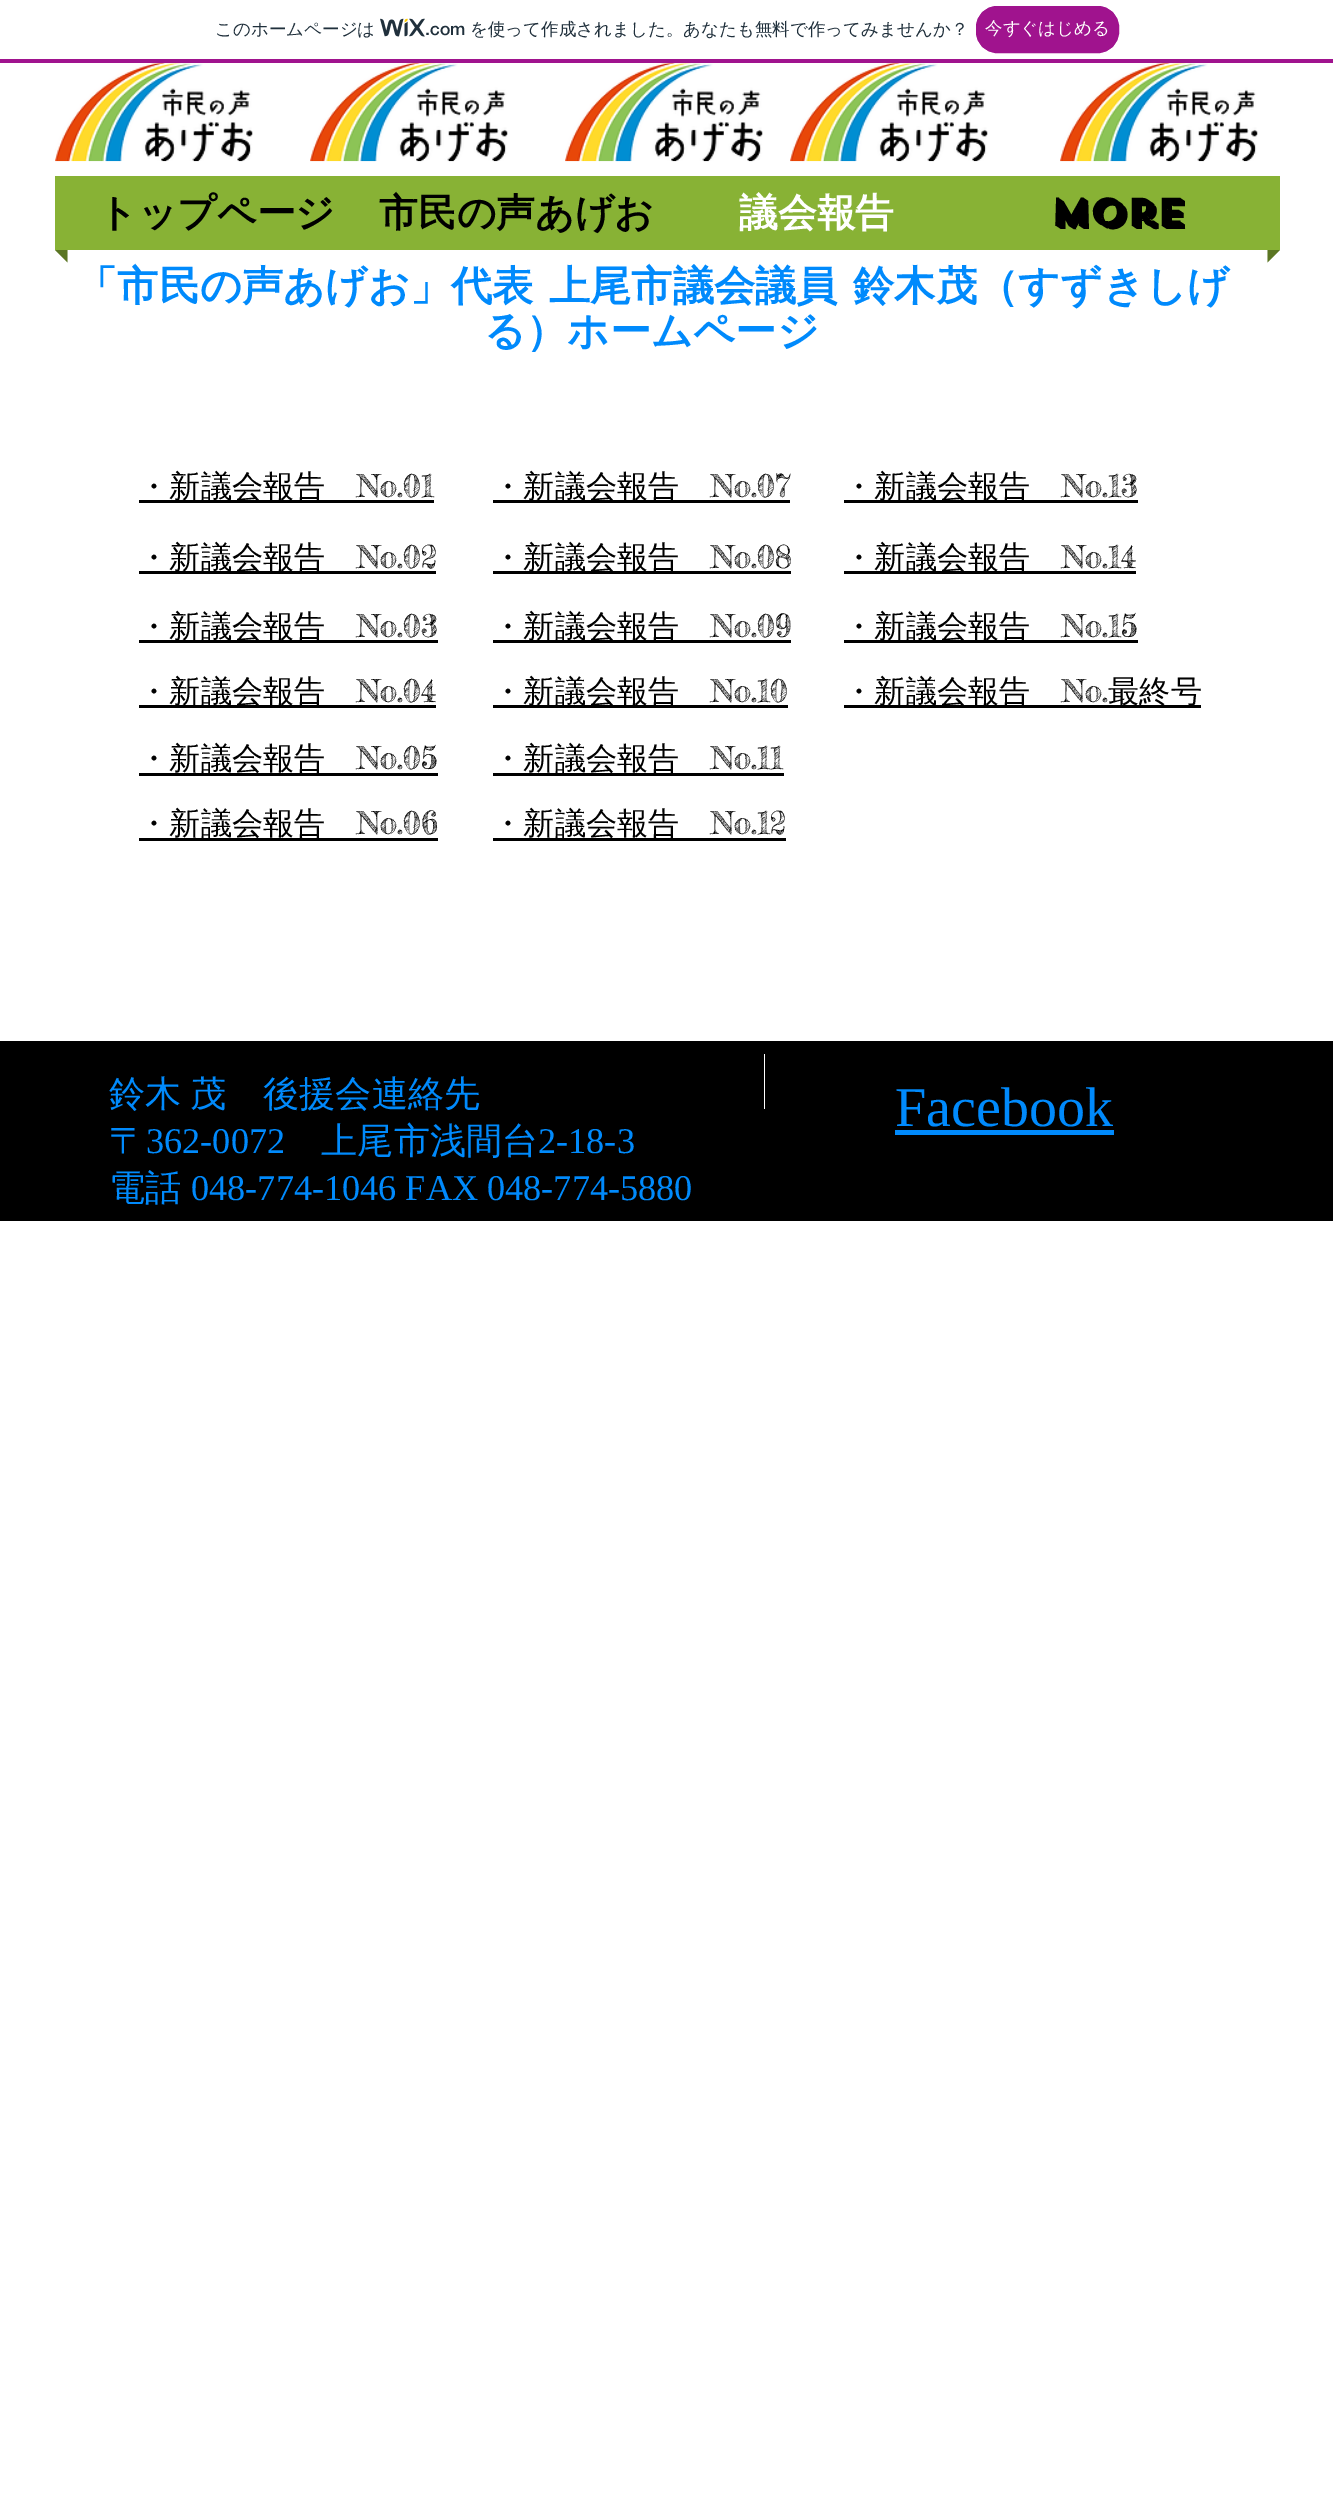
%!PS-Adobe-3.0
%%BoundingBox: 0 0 1333 2516
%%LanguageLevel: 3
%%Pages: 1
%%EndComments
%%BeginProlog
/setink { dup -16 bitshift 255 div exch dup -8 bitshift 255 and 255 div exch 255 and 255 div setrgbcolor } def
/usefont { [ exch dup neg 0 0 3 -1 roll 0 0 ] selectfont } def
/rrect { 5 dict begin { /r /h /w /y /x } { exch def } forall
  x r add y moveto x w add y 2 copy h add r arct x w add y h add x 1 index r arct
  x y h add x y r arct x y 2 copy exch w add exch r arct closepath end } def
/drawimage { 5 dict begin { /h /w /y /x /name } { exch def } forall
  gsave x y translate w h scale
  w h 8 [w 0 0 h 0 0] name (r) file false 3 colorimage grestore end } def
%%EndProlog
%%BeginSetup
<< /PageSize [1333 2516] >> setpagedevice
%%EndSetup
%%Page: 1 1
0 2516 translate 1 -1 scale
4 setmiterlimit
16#FFFFFF setink
0 0 1333 2516 rectfill
16#A0138E setink
0 59 1333 4 rectfill
/WenQuanYiZenHei-Medium 17.5 usefont
16#20303C setink
215 35 moveto (このホームページは) show
(img1.raw) 380 18 45 19 drawimage
/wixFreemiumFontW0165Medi-Medium 17.5 usefont
425 35 moveto (.com) show
/WenQuanYiZenHei-Medium 17.5 usefont
470 35 moveto (を使って作成されました。あなたも無料で作ってみませんか？) show
16#A0138E setink
976.5 6.5 142 46 20.5 rrect gsave fill grestore
stroke
16#FFFFFF setink
985 34 moveto (今すぐはじめる) show
(img2.raw) 55 63 198 99 drawimage
(img2.raw) 310 63 198 99 drawimage
(img3.raw) 565 63 198 99 drawimage
(img2.raw) 790 63 198 99 drawimage
(img4.raw) 1060 63 198 99 drawimage
16#88B235 setink
55 176 1225 74 rectfill
/WenQuanYiZenHei-Bold 38.75 usefont
16#000000 setink
98 226 moveto (トップページ) show
379 226 moveto (市民の声あげお) show
16#FFFFFF setink
739 226 moveto (議会報告) show
/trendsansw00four-Bold 38.75 usefont
16#000000 setink
1050 226 moveto (More) show
16#5B7623 setink
55 250 moveto 67.5 250 lineto 67.5 262.5 lineto closepath fill
1267.5 250 moveto 1280 250 lineto 1267.5 262.5 lineto closepath fill
/WenQuanYiZenHei-Bold 41.25 usefont
16#008AFC setink
76 300 moveto 3 0 32 (「市民の声あげお」代表 上尾市議会議員 鈴木茂（すずきしげ) widthshow
484 345 moveto (る）ホームページ) show
16#000000 setink
139 500 295 3 rectfill
/WenQuanYiZenHei-Medium 31.25 usefont
138 497 moveto (・新議会報告) show
/FrederickatheGreat-Regular 31.25 usefont
357 497 moveto (No.01) show
493 500 297 3 rectfill
/WenQuanYiZenHei-Medium 31.25 usefont
492 497 moveto (・新議会報告) show
/FrederickatheGreat-Regular 31.25 usefont
711 497 moveto (No.07) show
844 500 294 3 rectfill
/WenQuanYiZenHei-Medium 31.25 usefont
843 497 moveto (・新議会報告) show
/FrederickatheGreat-Regular 31.25 usefont
1062 497 moveto (No.13) show
139 571 297 3 rectfill
/WenQuanYiZenHei-Medium 31.25 usefont
138 568 moveto (・新議会報告) show
/FrederickatheGreat-Regular 31.25 usefont
357 568 moveto (No.02) show
493 571 298 3 rectfill
/WenQuanYiZenHei-Medium 31.25 usefont
492 568 moveto (・新議会報告) show
/FrederickatheGreat-Regular 31.25 usefont
711 568 moveto (No.08) show
844 571 292 3 rectfill
/WenQuanYiZenHei-Medium 31.25 usefont
843 568 moveto (・新議会報告) show
/FrederickatheGreat-Regular 31.25 usefont
1062 568 moveto (No.14) show
139 640 299 3 rectfill
/WenQuanYiZenHei-Medium 31.25 usefont
138 637 moveto (・新議会報告) show
/FrederickatheGreat-Regular 31.25 usefont
357 637 moveto (No.03) show
493 640 298 3 rectfill
/WenQuanYiZenHei-Medium 31.25 usefont
492 637 moveto (・新議会報告) show
/FrederickatheGreat-Regular 31.25 usefont
711 637 moveto (No.09) show
844 640 294 3 rectfill
/WenQuanYiZenHei-Medium 31.25 usefont
843 637 moveto (・新議会報告) show
/FrederickatheGreat-Regular 31.25 usefont
1062 637 moveto (No.15) show
139 705 297 3 rectfill
/WenQuanYiZenHei-Medium 31.25 usefont
138 702 moveto (・新議会報告) show
/FrederickatheGreat-Regular 31.25 usefont
357 702 moveto (No.04) show
493 705 295 3 rectfill
/WenQuanYiZenHei-Medium 31.25 usefont
492 702 moveto (・新議会報告) show
/FrederickatheGreat-Regular 31.25 usefont
711 702 moveto (No.10) show
844 705 357 3 rectfill
/WenQuanYiZenHei-Medium 31.25 usefont
843 702 moveto (・新議会報告) show
/FrederickatheGreat-Regular 31.25 usefont
1062 702 moveto (No.) show
/WenQuanYiZenHei-Medium 31.25 usefont
1108 702 moveto (最終号) show
139 773 299 3 rectfill
138 769 moveto (・新議会報告) show
/FrederickatheGreat-Regular 31.25 usefont
357 769 moveto (No.05) show
493 773 291 3 rectfill
/WenQuanYiZenHei-Medium 31.25 usefont
492 769 moveto (・新議会報告) show
/FrederickatheGreat-Regular 31.25 usefont
711 769 moveto (No.11) show
139 838 299 3 rectfill
/WenQuanYiZenHei-Medium 31.25 usefont
138 834 moveto (・新議会報告) show
/FrederickatheGreat-Regular 31.25 usefont
357 834 moveto (No.06) show
493 838 293 3 rectfill
/WenQuanYiZenHei-Medium 31.25 usefont
492 834 moveto (・新議会報告) show
/FrederickatheGreat-Regular 31.25 usefont
711 834 moveto (No.12) show
0 1041 1333 180 rectfill
/WenQuanYiZenHei-Medium 36.25 usefont
16#008AFC setink
109 1106 moveto -2 0 32 (鈴木 茂　後援会連絡先) widthshow
109 1153 moveto (〒) show
/LiberationSerif-Regular 36.25 usefont
146 1153 moveto (362-0072) show
/WenQuanYiZenHei-Medium 36.25 usefont
321 1153 moveto (上尾市浅間台) show
/LiberationSerif-Regular 36.25 usefont
538 1153 moveto (2-18-3) show
/WenQuanYiZenHei-Medium 36.25 usefont
109 1200 moveto (電話) show
/LiberationSerif-Regular 36.25 usefont
191 1200 moveto (048-774-1046 FAX 048-774-5880) show
16#FFFFFF setink
764 1054 1 55 rectfill
/LiberationSerif-Regular 56 usefont
16#008AFC setink
895 1126 moveto (Facebook) show
895 1130 219 5 rectfill
showpage
%%EOF
